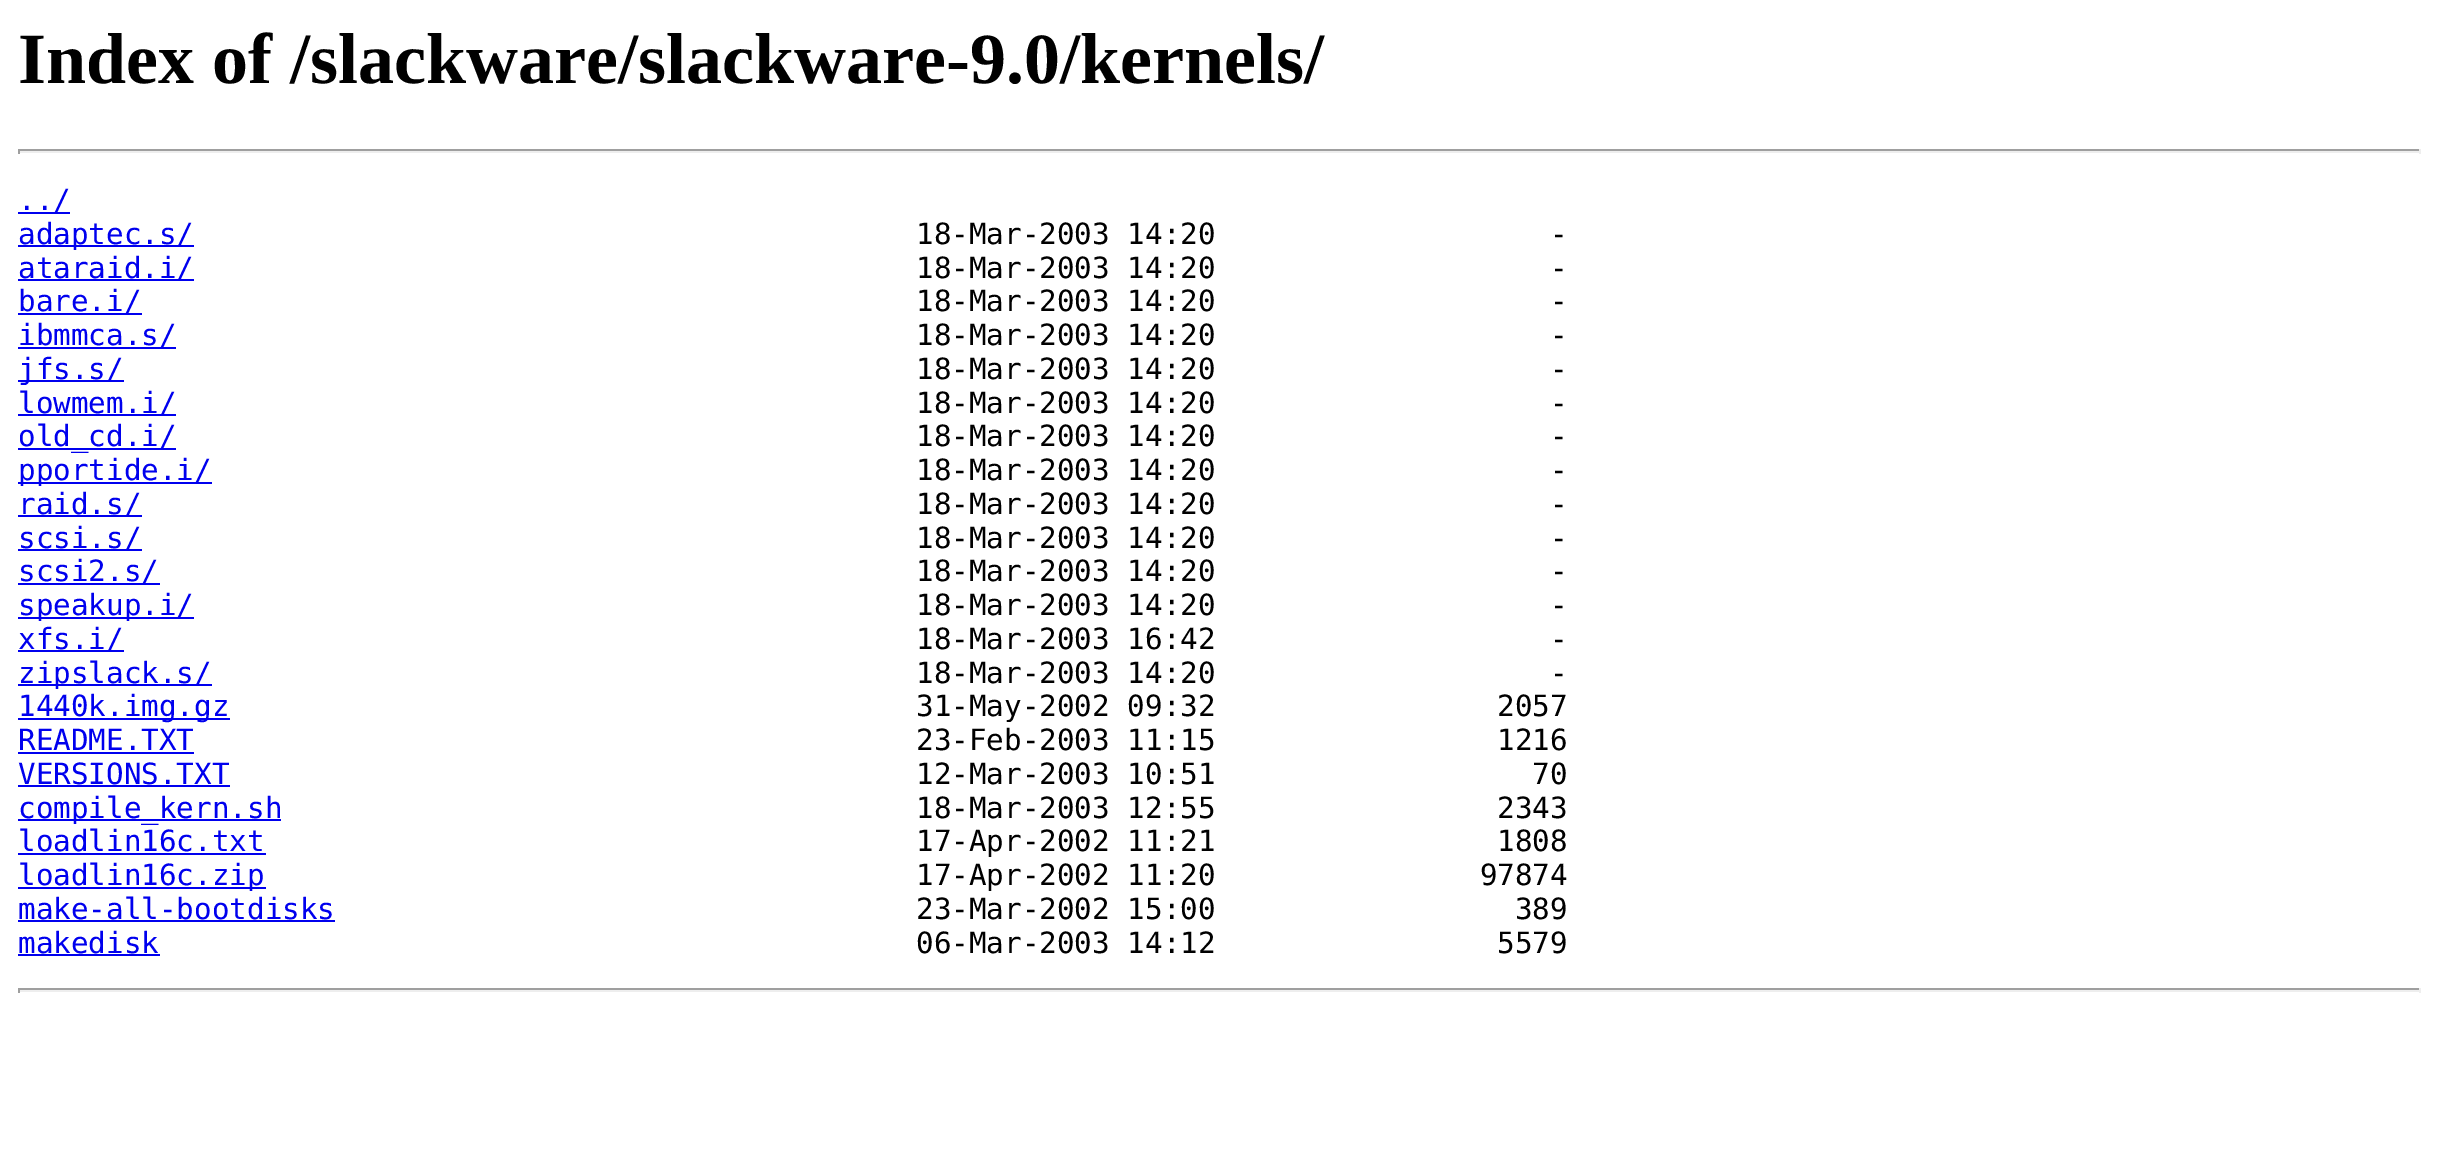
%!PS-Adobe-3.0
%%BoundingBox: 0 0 2439 1156
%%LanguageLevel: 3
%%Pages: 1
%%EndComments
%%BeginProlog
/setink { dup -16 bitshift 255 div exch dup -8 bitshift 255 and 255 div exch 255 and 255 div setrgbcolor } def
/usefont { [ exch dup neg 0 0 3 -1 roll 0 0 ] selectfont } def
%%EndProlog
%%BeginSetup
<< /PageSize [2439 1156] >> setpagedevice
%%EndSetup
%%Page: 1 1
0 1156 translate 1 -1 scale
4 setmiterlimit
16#FFFFFF setink
0 0 2439 1156 rectfill
/LiberationSerif-Bold 72 usefont
16#000000 setink
18 83 moveto (Index of /slackware/slackware-9.0/kernels/) show
[
    [18 149 2403 2 16#9F9F9F]
    [2419 149 2 5 16#EEEEEE]
    [18 151 2403 2 16#EEEEEE]
    [18 149 2 5 16#9F9F9F]
    [18 212 52 2 16#0000EE]
] { aload pop setink rectfill } forall
/DejaVuSansMono-Regular 29.25 usefont
18 210 moveto (../) show
18 245 176 2 rectfill
18 244 moveto (adaptec.s/) show
16#000000 setink
916 244 moveto (18-Mar-2003 14:20                   -) show
16#0000EE setink
18 279 176 2 rectfill
18 278 moveto (ataraid.i/) show
16#000000 setink
916 278 moveto (18-Mar-2003 14:20                   -) show
16#0000EE setink
18 313 124 2 rectfill
18 311 moveto (bare.i/) show
16#000000 setink
916 311 moveto (18-Mar-2003 14:20                   -) show
16#0000EE setink
18 347 158 2 rectfill
18 345 moveto (ibmmca.s/) show
16#000000 setink
916 345 moveto (18-Mar-2003 14:20                   -) show
16#0000EE setink
18 380 106 2 rectfill
18 379 moveto (jfs.s/) show
16#000000 setink
916 379 moveto (18-Mar-2003 14:20                   -) show
16#0000EE setink
18 414 158 2 rectfill
18 413 moveto (lowmem.i/) show
16#000000 setink
916 413 moveto (18-Mar-2003 14:20                   -) show
16#0000EE setink
18 448 158 2 rectfill
18 446 moveto (old_cd.i/) show
16#000000 setink
916 446 moveto (18-Mar-2003 14:20                   -) show
16#0000EE setink
18 482 194 2 rectfill
18 480 moveto (pportide.i/) show
16#000000 setink
916 480 moveto (18-Mar-2003 14:20                   -) show
16#0000EE setink
18 515 124 2 rectfill
18 514 moveto (raid.s/) show
16#000000 setink
916 514 moveto (18-Mar-2003 14:20                   -) show
16#0000EE setink
18 549 124 2 rectfill
18 548 moveto (scsi.s/) show
16#000000 setink
916 548 moveto (18-Mar-2003 14:20                   -) show
16#0000EE setink
18 583 142 2 rectfill
18 581 moveto (scsi2.s/) show
16#000000 setink
916 581 moveto (18-Mar-2003 14:20                   -) show
16#0000EE setink
18 617 176 2 rectfill
18 615 moveto (speakup.i/) show
16#000000 setink
916 615 moveto (18-Mar-2003 14:20                   -) show
16#0000EE setink
18 650 106 2 rectfill
18 649 moveto (xfs.i/) show
16#000000 setink
916 649 moveto (18-Mar-2003 16:42                   -) show
16#0000EE setink
18 684 194 2 rectfill
18 683 moveto (zipslack.s/) show
16#000000 setink
916 683 moveto (18-Mar-2003 14:20                   -) show
16#0000EE setink
18 718 212 2 rectfill
18 716 moveto (1440k.img.gz) show
16#000000 setink
916 716 moveto (31-May-2002 09:32                2057) show
16#0000EE setink
18 750 moveto (README.TXT) show
18 752 176 2 rectfill
16#000000 setink
916 750 moveto (23-Feb-2003 11:15                1216) show
16#0000EE setink
18 784 moveto (VERSIONS.TXT) show
18 785 212 2 rectfill
16#000000 setink
916 784 moveto (12-Mar-2003 10:51                  70) show
16#0000EE setink
18 819 263 2 rectfill
18 818 moveto (compile_kern.sh) show
16#000000 setink
916 818 moveto (18-Mar-2003 12:55                2343) show
16#0000EE setink
18 851 moveto (loadlin16c.txt) show
18 853 248 2 rectfill
16#000000 setink
916 851 moveto (17-Apr-2002 11:21                1808) show
16#0000EE setink
18 887 248 2 rectfill
18 885 moveto (loadlin16c.zip) show
16#000000 setink
916 885 moveto (17-Apr-2002 11:20               97874) show
16#0000EE setink
18 919 moveto (make-all-bootdisks) show
18 920 317 2 rectfill
16#000000 setink
916 919 moveto (23-Mar-2002 15:00                 389) show
16#0000EE setink
18 953 moveto (makedisk) show
18 954 142 2 rectfill
16#000000 setink
916 953 moveto (06-Mar-2003 14:12                5579) show
[
    [18 988 2403 2 16#9F9F9F]
    [2419 988 2 5 16#EEEEEE]
    [18 990 2403 2 16#EEEEEE]
    [18 988 2 5 16#9F9F9F]
] { aload pop setink rectfill } forall
showpage
%%EOF
